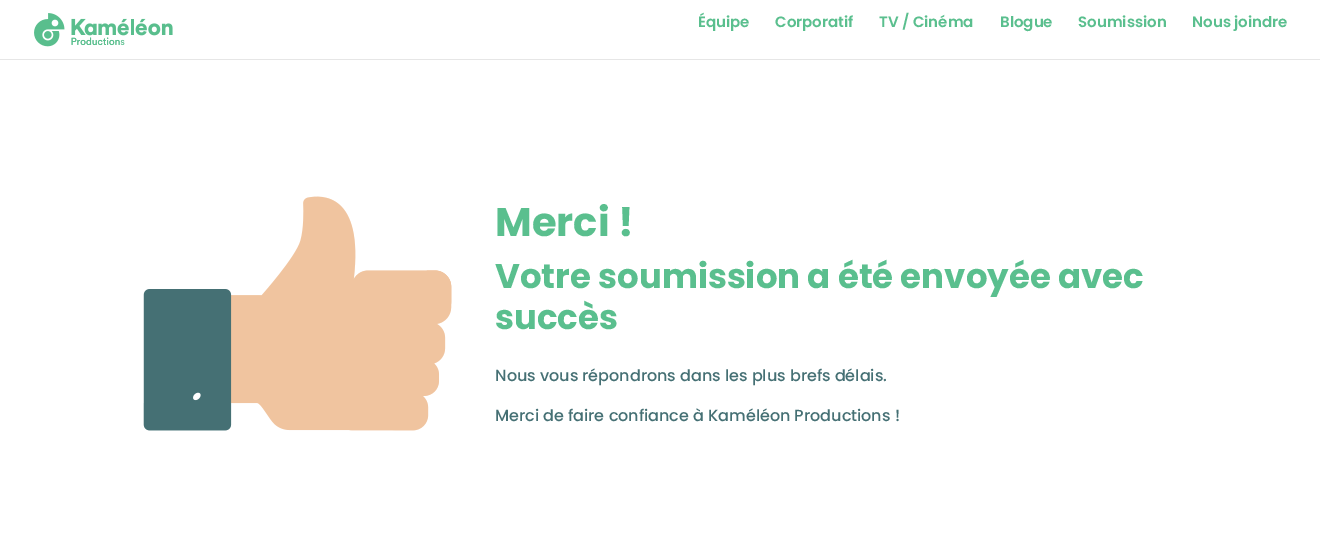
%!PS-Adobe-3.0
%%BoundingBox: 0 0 1320 557
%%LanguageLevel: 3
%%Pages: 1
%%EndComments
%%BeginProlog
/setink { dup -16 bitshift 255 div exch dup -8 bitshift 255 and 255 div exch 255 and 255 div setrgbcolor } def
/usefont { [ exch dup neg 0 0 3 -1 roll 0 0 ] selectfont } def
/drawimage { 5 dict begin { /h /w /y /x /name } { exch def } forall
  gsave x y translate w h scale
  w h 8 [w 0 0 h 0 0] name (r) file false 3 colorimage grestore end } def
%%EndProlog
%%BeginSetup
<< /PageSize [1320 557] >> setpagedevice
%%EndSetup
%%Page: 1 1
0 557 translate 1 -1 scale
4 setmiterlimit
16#FFFFFF setink
0 0 1320 557 rectfill
16#E6E6E6 setink
0 59 1320 1 rectfill
(img1.raw) 34 13 139 34 drawimage
/Poppins-SemiBold 15 usefont
16#5ABF8E setink
[
    [(Équipe) 698 27]
    [(Corporatif) 775 27]
    [(TV / Cinéma) 879 27]
    [(Blogue) 1000 27]
    [(Soumission) 1078 27]
    [(Nous joindre) 1192 27]
] { aload pop moveto show } forall
(img2.raw) 143 196 309 235 drawimage
/Poppins-Bold 40 usefont
495 236 moveto (Merci !) show
/Poppins-Bold 34 usefont
495 288 moveto (Votre soumission a été envoyée avec) show
495 329 moveto (succès) show
/Poppins-Medium 16 usefont
16#457074 setink
495 381 moveto (Nous vous répondrons dans les plus brefs délais.) show
495 421 moveto (Merci de faire confiance à Kaméléon Productions !) show
showpage
%%EOF
